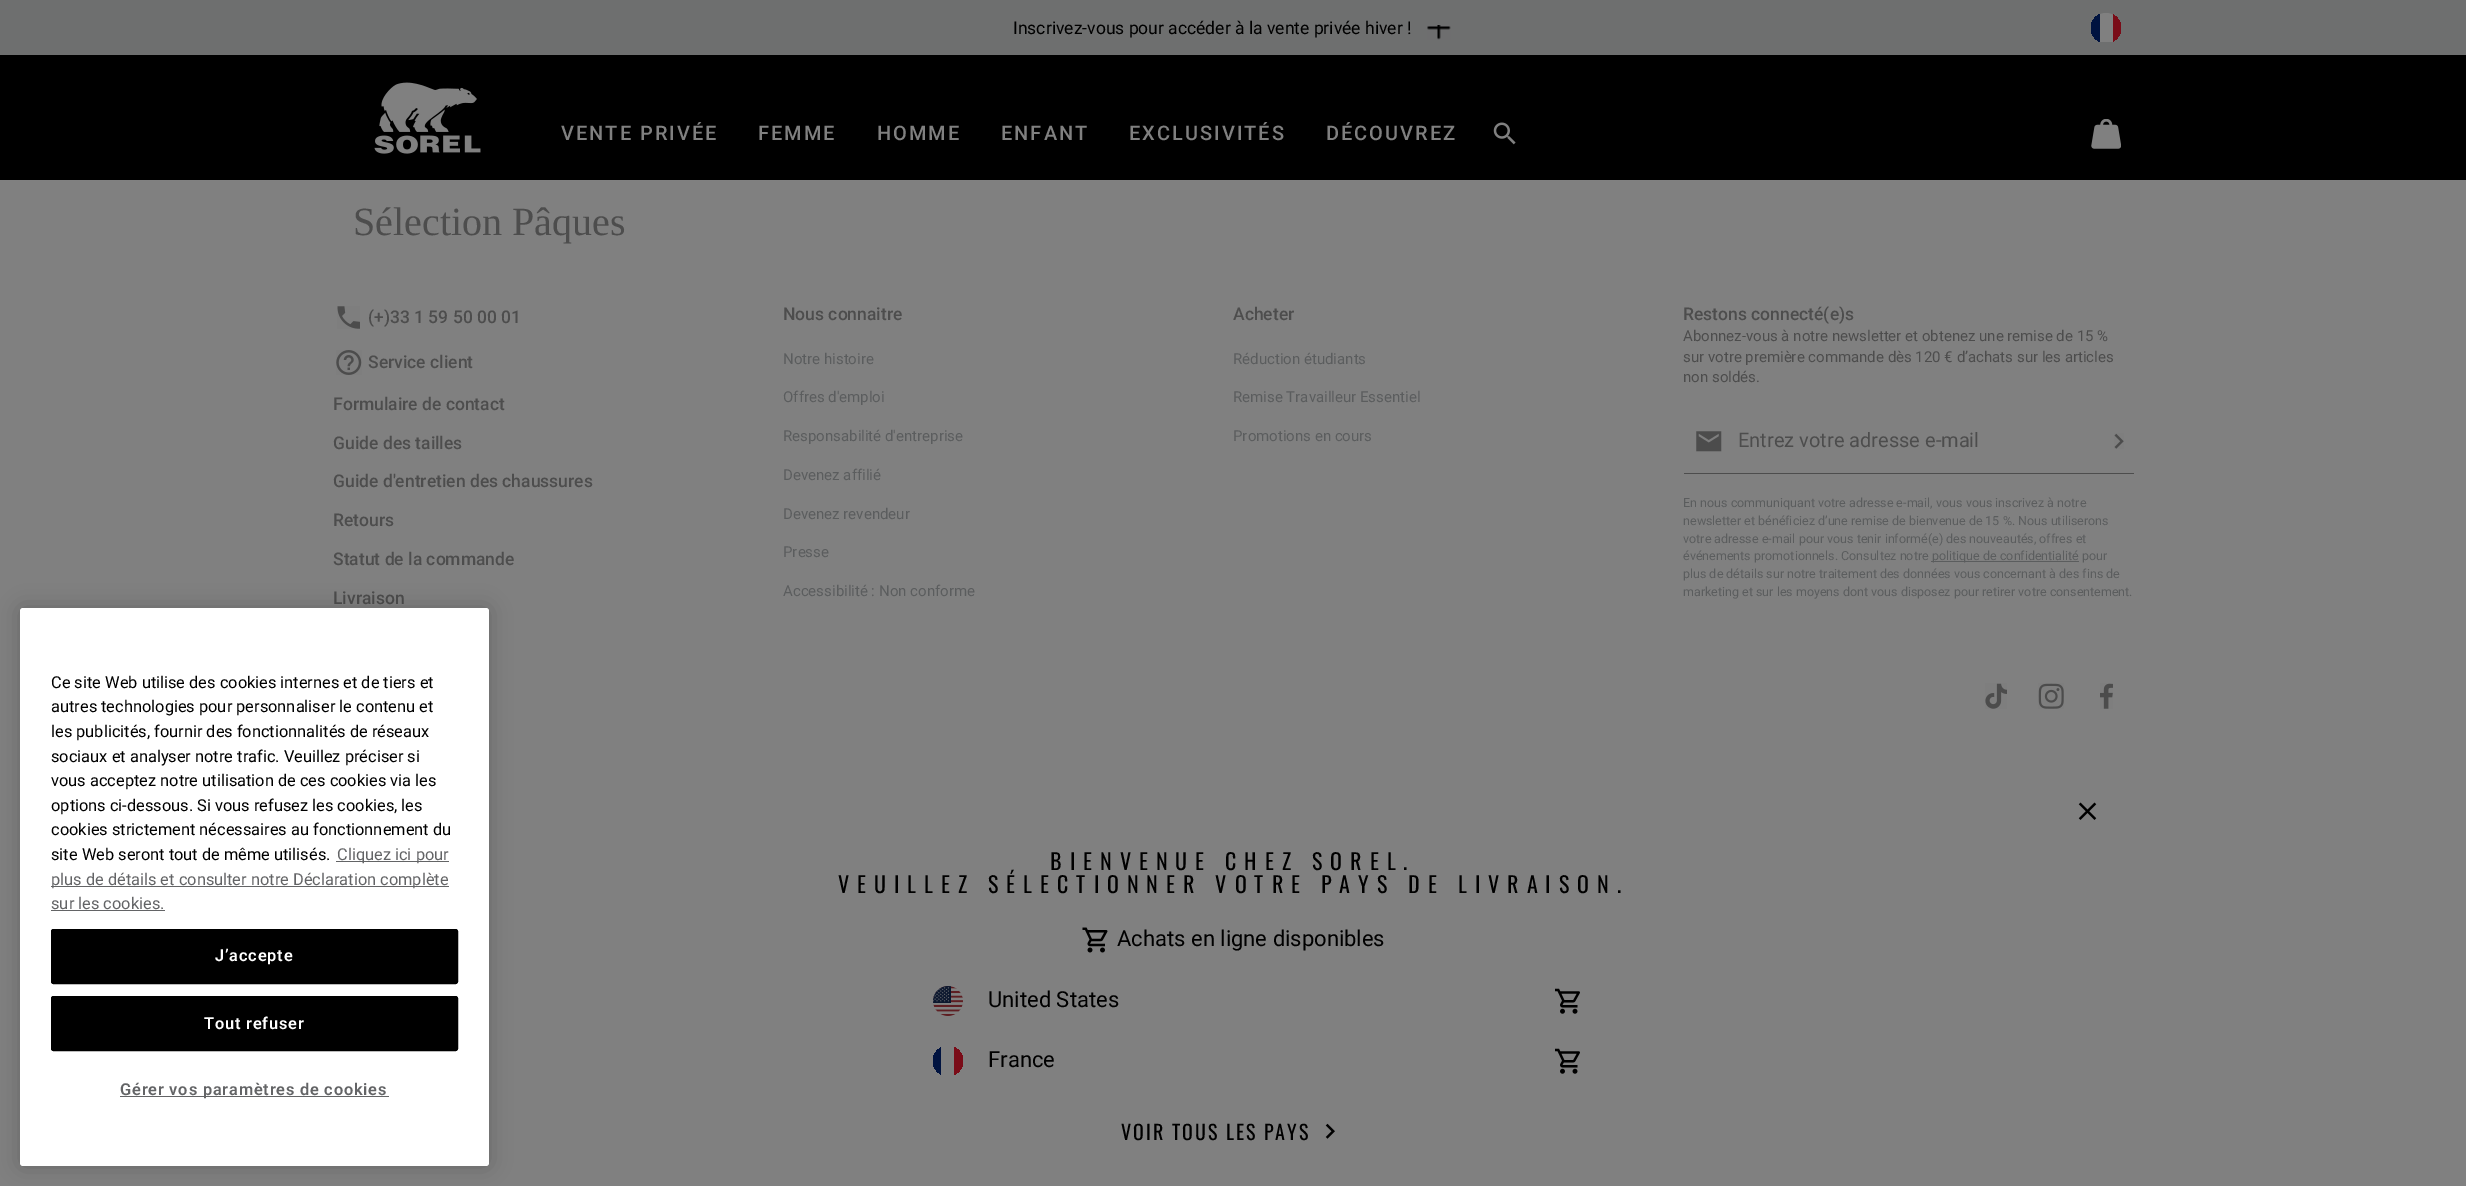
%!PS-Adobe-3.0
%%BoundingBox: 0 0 2466 1186
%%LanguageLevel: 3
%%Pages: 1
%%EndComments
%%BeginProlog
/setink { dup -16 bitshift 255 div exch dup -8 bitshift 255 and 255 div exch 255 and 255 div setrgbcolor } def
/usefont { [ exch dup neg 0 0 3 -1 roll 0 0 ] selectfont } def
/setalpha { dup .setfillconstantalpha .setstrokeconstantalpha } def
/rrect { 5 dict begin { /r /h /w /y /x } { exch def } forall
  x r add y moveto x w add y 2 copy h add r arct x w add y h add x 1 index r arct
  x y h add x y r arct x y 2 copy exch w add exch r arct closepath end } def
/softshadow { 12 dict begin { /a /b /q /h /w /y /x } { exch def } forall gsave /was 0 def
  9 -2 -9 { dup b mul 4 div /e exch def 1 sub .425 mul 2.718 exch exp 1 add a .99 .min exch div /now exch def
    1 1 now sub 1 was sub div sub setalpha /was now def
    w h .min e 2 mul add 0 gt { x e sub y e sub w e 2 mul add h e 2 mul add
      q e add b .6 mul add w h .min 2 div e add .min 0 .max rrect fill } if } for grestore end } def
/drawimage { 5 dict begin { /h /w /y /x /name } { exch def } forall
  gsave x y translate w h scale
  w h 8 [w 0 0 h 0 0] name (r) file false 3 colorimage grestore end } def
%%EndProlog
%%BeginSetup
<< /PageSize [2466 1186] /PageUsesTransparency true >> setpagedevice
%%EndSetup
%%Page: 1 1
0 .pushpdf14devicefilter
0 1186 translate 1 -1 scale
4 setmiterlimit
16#808080 setink
0 0 2466 1186 rectfill
16#6E6F6F setink
0 0 2466 55 rectfill
/Roboto-Regular 17.5 usefont
16#000000 setink
1013 34 moveto (Inscrivez-vous pour accéder à la vente privée hiver !) show
(img1.raw) 1427 25 24 15 drawimage
gsave
2091 13 30 30 15 rrect clip newpath
16#808080 setink
2106 13 moveto 2114.5 13 2121 19.5 2121 28 curveto 2121 42 lineto 2091 42 lineto 2091 28 lineto 2091 19.5 2097.5 13 2106 13 curveto closepath fill
16#001340 setink
2091 14 9 28 rectfill
16#7A0C18 setink
2113 13 8 30 rectfill
grestore
0 55 2466 125 rectfill
(img2.raw) 374 82 107 72 drawimage
/Roboto-Medium 20 usefont
16#808080 setink
561 140 moveto 2 0 (VENTE PRIVÉE) ashow
758 140 moveto 2 0 (FEMME) ashow
877 140 moveto 2 0 (HOMME) ashow
1001 140 moveto 2 0 (ENFANT) ashow
1129 140 moveto 2 0 (EXCLUSIVITÉS) ashow
1326 140 moveto 2 0 (DÉCOUVREZ) ashow
(img3.raw) 1493 122 23 23 drawimage
(img4.raw) 2091 119 30 30 drawimage
/LiberationSerif-Regular 40 usefont
16#4D4D4D setink
353 235 moveto (Sélection Pâques) show
(img5.raw) 337 306 23 23 drawimage
/Roboto-Medium 17.5 usefont
368 323 moveto (\(+\)33 1 59 50 00 01) show
(img6.raw) 336 350 26 25 drawimage
[
    [(Service client) 368 368]
    [(Formulaire de contact) 333 410]
    [(Guide des tailles) 333 449]
    [(Guide d'entretien des chaussures) 333 487]
    [(Retours) 333 526]
    [(Statut de la commande) 333 565]
    [(Livraison) 333 604]
    [(Nous connaitre) 783 320]
] { aload pop moveto show } forall
/Roboto-Regular 15 usefont
16#5B5D5E setink
[
    [(Notre histoire) 783 364]
    [(Offres d'emploi) 783 402]
    [(Responsabilité d'entreprise) 783 441]
    [(Devenez affilié) 783 480]
    [(Devenez revendeur) 783 519]
    [(Presse) 783 557]
    [(Accessibilité : Non conforme) 783 596]
] { aload pop moveto show } forall
/Roboto-Medium 17.5 usefont
16#4D4D4D setink
1233 320 moveto (Acheter) show
/Roboto-Regular 15 usefont
16#5B5D5E setink
[
    [(Réduction étudiants) 1233 364]
    [(Remise Travailleur Essentiel) 1233 402]
    [(Promotions en cours) 1233 441]
] { aload pop moveto show } forall
/Roboto-Medium 17.5 usefont
16#4D4D4D setink
1683 320 moveto (Restons connecté\(e\)s) show
/Roboto-Regular 15 usefont
[
    [(Abonnez-vous à notre newsletter et obtenez une remise de 15 %) 1683 341]
    [(sur votre première commande dès 120 € d’achats sur les articles) 1683 362]
    [(non soldés.) 1683 382]
] { aload pop moveto show } forall
(img7.raw) 1696 431 26 21 drawimage
/Roboto-Regular 20 usefont
1738 447 moveto (Entrez votre adresse e-mail) show
(img8.raw) 2114 433 10 16 drawimage
1684 473 450 1 rectfill
/Roboto-Regular 12.5 usefont
16#5B5D5E setink
[
    [(En nous communiquant votre adresse e-mail, vous vous inscrivez à notre) 1683 507]
    [(newsletter et bénéficiez d’une remise de bienvenue de 15 %. Nous utiliserons) 1683 525]
    [(votre adresse e-mail pour vous tenir informé\(e\) des nouveautés, offres et) 1683 543]
    [(événements promotionnels. Consultez notre) 1683 560]
] { aload pop moveto show } forall
1931 561 148 1 rectfill
[
    [(politique de confidentialité pour) 1932 560]
    [(plus de détails sur notre traitement des données vous concernant à des fins de) 1683 578]
    [(marketing et sur les moyens dont vous disposez pour retirer votre consentement.) 1683 596]
] { aload pop moveto show } forall
(img9.raw) 1985 683 22 26 drawimage
(img10.raw) 2038 683 26 26 drawimage
(img11.raw) 2100 683 13 26 drawimage
16#000000 setink
20 608 469 558 3 11 0.2 softshadow
16#FFFFFF setink
20 608 469 558 3 rrect fill
/Roboto-Regular 16.4 usefont
16#000000 setink
[
    [(Ce site Web utilise des cookies internes et de tiers et) 51 688]
    [(autres technologies pour personnaliser le contenu et) 51 712]
    [(les publicités, fournir des fonctionnalités de réseaux) 51 737]
    [(sociaux et analyser notre trafic. Veuillez préciser si) 51 762]
    [(vous acceptez notre utilisation de ces cookies via les) 51 786]
    [(options ci-dessous. Si vous refusez les cookies, les) 51 811]
    [(cookies strictement nécessaires au fonctionnement du) 51 835]
    [(site Web seront tout de même utilisés.) 51 860]
] { aload pop moveto show } forall
16#636466 setink
336 861 113 1 rectfill
337 860 moveto (Cliquez ici pour) show
51 886 398 1 rectfill
51 885 moveto (plus de détails et consulter notre Déclaration complète) show
51 909 moveto (sur les cookies.) show
51 910 114 1 rectfill
16#000000 setink
51.5 929.5 406 54 2 rrect gsave fill grestore
stroke
/Roboto-SemiBold 16.4 usefont
16#FFFFFF setink
215 961 moveto 0.8 0 (J’accepte) ashow
16#000000 setink
51.5 996.5 406 54 2 rrect gsave fill grestore
stroke
16#FFFFFF setink
204 1029 moveto 0.8 0 (Tout refuser) ashow
16#636466 setink
120 1096 269 1 rectfill
120 1095 moveto 0.8 0 (Gérer vos paramètres de cookies) ashow
(img12.raw) 2078 802 19 18 drawimage
/Oswald-Regular 22 usefont
16#000000 setink
1050 870 moveto 8 0 (BIENVENUE CHEZ SOREL.) ashow
838 893 moveto 8 0 (VEUILLEZ SÉLECTIONNER VOTRE PAYS DE LIVRAISON.) ashow
(img13.raw) 1082 927 26 26 drawimage
/Roboto-Regular 22 usefont
1117 946 moveto (Achats en ligne disponibles) show
(img14.raw) 933 986 30 30 drawimage
988 1007 moveto (United States) show
(img15.raw) 1555 988 25 26 drawimage
gsave
933 1046 30 30 15 rrect clip newpath
16#001340 setink
933 1046 8 30 rectfill
16#7A0C18 setink
954 1047 9 28 rectfill
grestore
988 1067 moveto (France) show
(img15.raw) 1555 1048 25 26 drawimage
/Oswald-Regular 20 usefont
1121 1140 moveto 2 0 (VOIR TOUS LES PAYS) ashow
(img16.raw) 1325 1123 10 16 drawimage
.poppdf14devicefilter showpage
%%EOF
